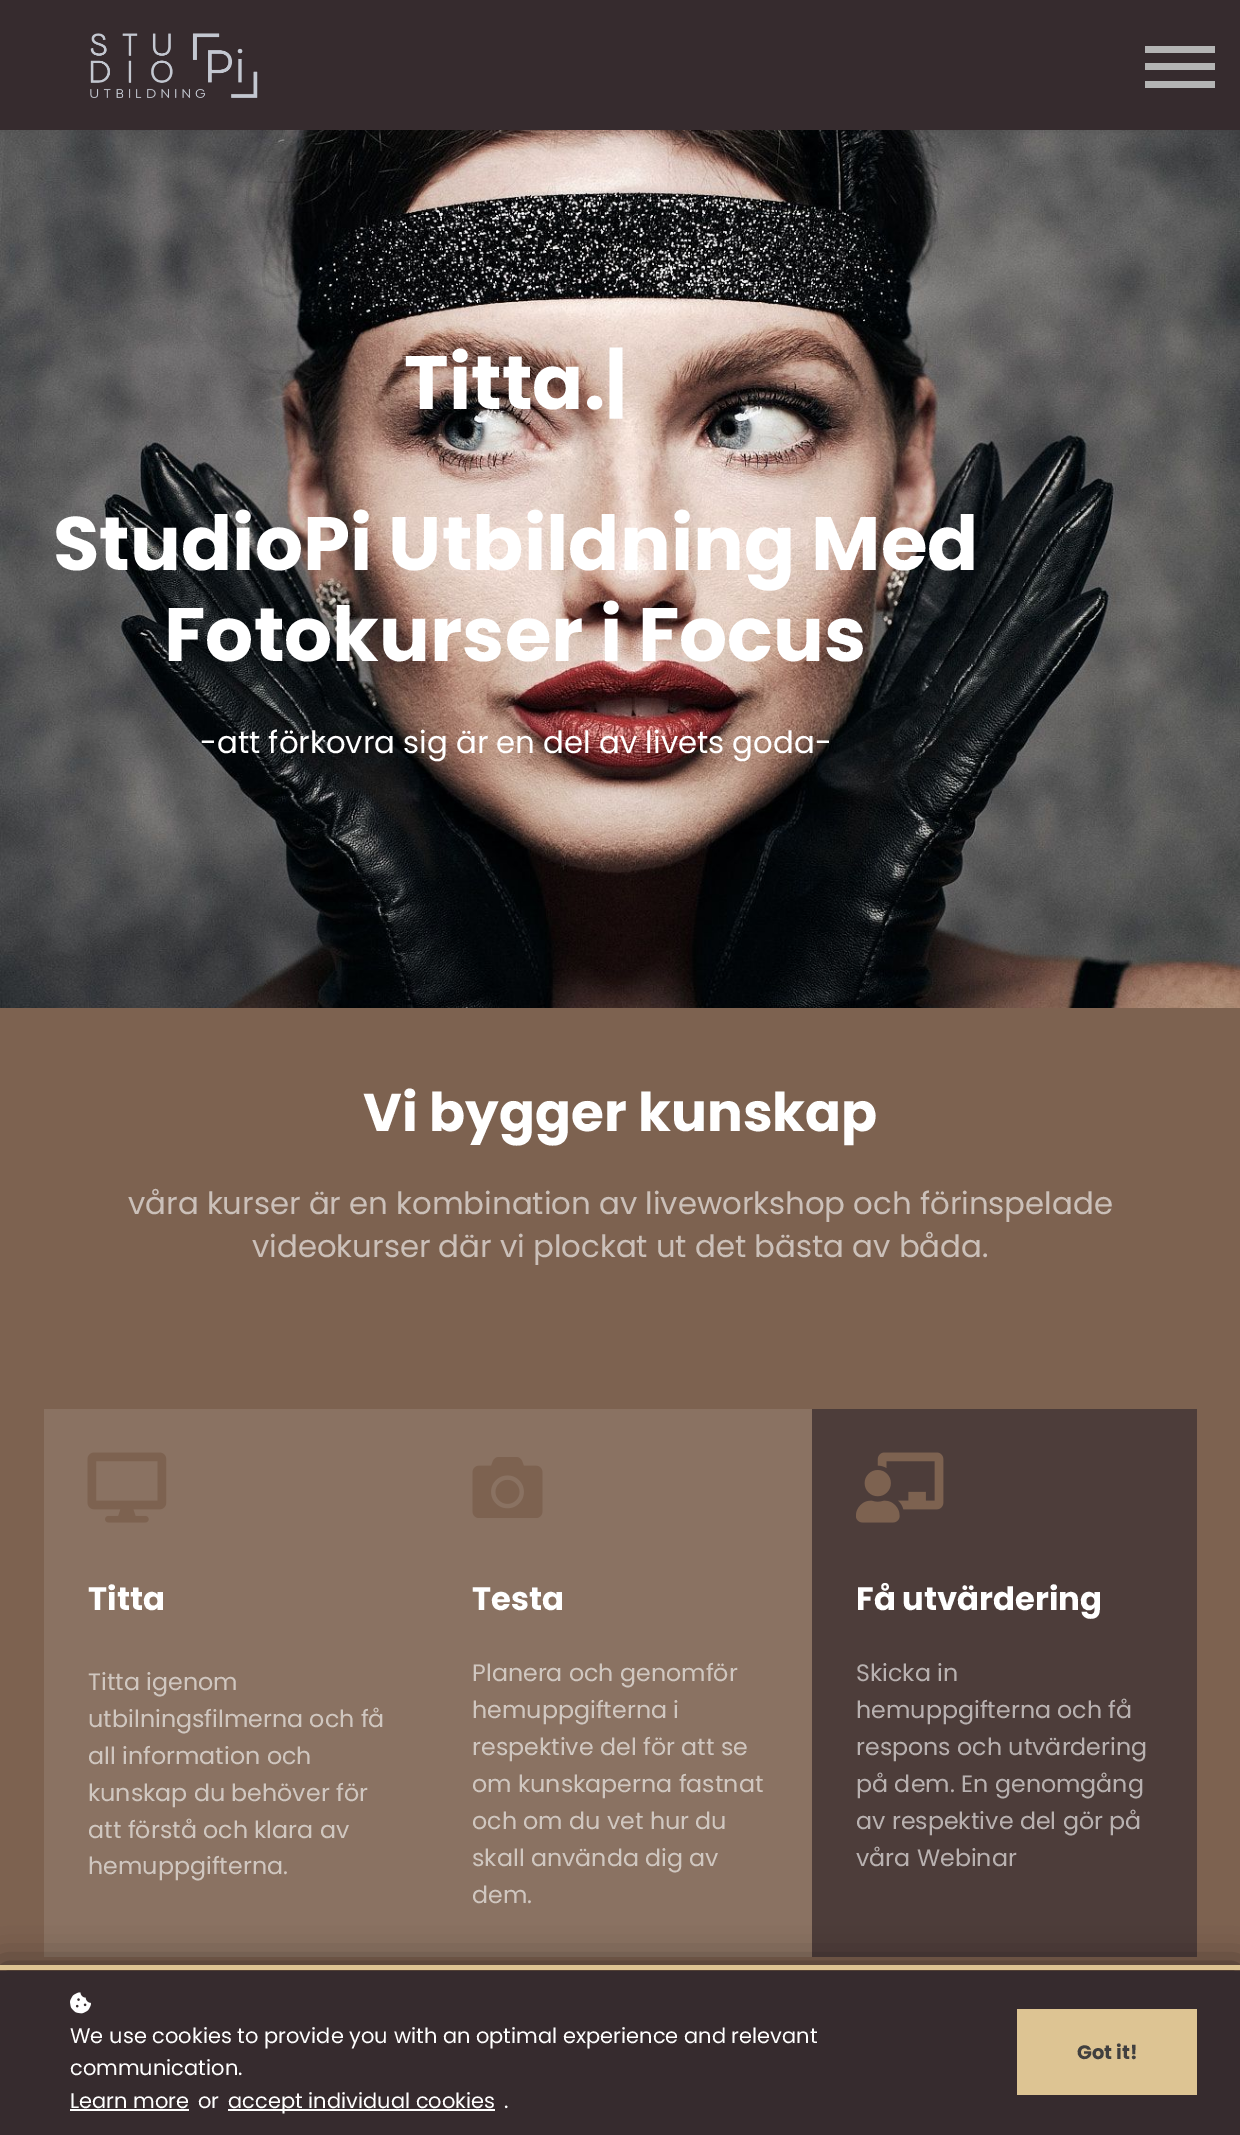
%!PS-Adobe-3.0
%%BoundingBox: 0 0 1240 2135
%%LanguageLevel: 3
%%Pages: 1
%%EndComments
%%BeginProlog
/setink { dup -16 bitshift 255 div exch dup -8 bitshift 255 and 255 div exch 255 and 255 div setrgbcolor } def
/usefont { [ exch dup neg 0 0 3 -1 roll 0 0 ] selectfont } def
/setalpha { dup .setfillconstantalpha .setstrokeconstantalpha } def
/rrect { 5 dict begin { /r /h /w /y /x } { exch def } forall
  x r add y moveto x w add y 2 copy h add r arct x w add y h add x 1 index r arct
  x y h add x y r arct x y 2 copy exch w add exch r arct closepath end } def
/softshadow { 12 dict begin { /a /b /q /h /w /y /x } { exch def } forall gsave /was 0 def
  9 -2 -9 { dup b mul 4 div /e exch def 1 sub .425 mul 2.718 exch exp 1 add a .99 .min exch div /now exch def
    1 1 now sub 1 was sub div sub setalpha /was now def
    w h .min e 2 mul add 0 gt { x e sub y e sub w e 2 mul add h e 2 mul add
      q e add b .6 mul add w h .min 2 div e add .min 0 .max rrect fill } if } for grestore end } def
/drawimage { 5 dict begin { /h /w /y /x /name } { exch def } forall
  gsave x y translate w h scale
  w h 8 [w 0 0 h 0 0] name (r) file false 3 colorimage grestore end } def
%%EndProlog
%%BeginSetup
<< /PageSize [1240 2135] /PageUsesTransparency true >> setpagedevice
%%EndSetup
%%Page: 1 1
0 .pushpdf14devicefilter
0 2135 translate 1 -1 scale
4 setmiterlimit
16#FFFFFF setink
0 0 1240 2135 rectfill
(img2.raw) 0 130 1240 878 drawimage
16#000000 setink
0 0 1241 130 0 13 0.05 softshadow
16#362B2E setink
0 0 1240 130 rectfill
(img1.raw) 90 33 168 65 drawimage
[
    [1145 81 70 7 16#B4B4B4]
    [1145 46 70 7 16#B4B4B4]
    [1145 63 70 7 16#B4B4B4]
] { aload pop setink rectfill } forall
/Poppins-Bold 75.6 usefont
16#FFFFFF setink
[
    [(Titta.|) 404 409]
    [(StudioPi Utbildning Med) 53 570]
    [(Fotokurser i Focus) 164 661]
] { aload pop moveto show } forall
/Poppins-Regular 30.8 usefont
200 753 moveto (-att förkovra sig är en del av livets goda-) show
16#7D6250 setink
0 1008 1240 963 rectfill
/Poppins-Bold 53.25 usefont
16#FFFFFF setink
363 1131 moveto (Vi bygger kunskap) show
/Poppins-Regular 30.8 usefont
16#CBC0B9 setink
128 1214 moveto (våra kurser är en kombination av liveworkshop och förinspelade) show
252 1257 moveto (videokurser där vi plockat ut det bästa av båda.) show
16#8A7262 setink
44 1409 768 548 rectfill
(img3.raw) 87 1452 80 71 drawimage
/Poppins-Bold 32.25 usefont
16#FFFFFF setink
88 1610 moveto (Titta) show
/Poppins-Regular 23.75 usefont
16#D0C7C0 setink
[
    [(Titta igenom) 88 1690]
    [(utbilningsfilmerna och få) 88 1727]
    [(all information och) 88 1764]
    [(kunskap du behöver för) 88 1801]
    [(att förstå och klara av) 88 1838]
    [(hemuppgifterna.) 88 1874]
] { aload pop moveto show } forall
(img4.raw) 472 1457 71 61 drawimage
/Poppins-Bold 32.25 usefont
16#FFFFFF setink
472 1610 moveto (Testa) show
/Poppins-Regular 23.75 usefont
16#D0C7C0 setink
[
    [(Planera och genomför) 472 1681]
    [(hemuppgifterna i) 472 1718]
    [(respektive del för att se) 472 1755]
    [(om kunskaperna fastnat) 472 1792]
    [(och om du vet hur du) 472 1829]
    [(skall använda dig av) 472 1866]
    [(dem.) 472 1903]
] { aload pop moveto show } forall
16#4D3D3A setink
812 1409 385 548 rectfill
(img5.raw) 856 1452 88 71 drawimage
/Poppins-Bold 32.25 usefont
16#FFFFFF setink
856 1610 moveto (Få utvärdering) show
/Poppins-Regular 23.75 usefont
16#B8B1B0 setink
[
    [(Skicka in) 856 1681]
    [(hemuppgifterna och få) 856 1718]
    [(respons och utvärdering) 856 1755]
    [(på dem. En genomgång) 856 1792]
    [(av respektive del gör på) 856 1829]
    [(våra Webinar) 856 1866]
] { aload pop moveto show } forall
16#000000 setink
0 1965 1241 170 0 17.5 0.5 softshadow
16#362B2E setink
0 1971 1240 164 rectfill
16#DDC493 setink
0 1965 1240 5 rectfill
(img6.raw) 70 1992 21 22 drawimage
/Poppins-Regular 21 usefont
16#FFFFFF setink
[
    [(We use cookies to provide you with an optimal experience and relevant) 70 2043]
    [(communication.) 70 2075]
    [(Learn more) 70 2108]
] { aload pop moveto show } forall
70 2109 119 2 rectfill
198 2108 moveto (or) show
228 2109 267 2 rectfill
228 2108 moveto (accept individual cookies) show
504 2108 moveto (.) show
16#DDC493 setink
1017 2009 180 86 rectfill
/Poppins-Bold 19.5 usefont
16#41403F setink
1077 2059 moveto (Got it!) show
.poppdf14devicefilter showpage
%%EOF
